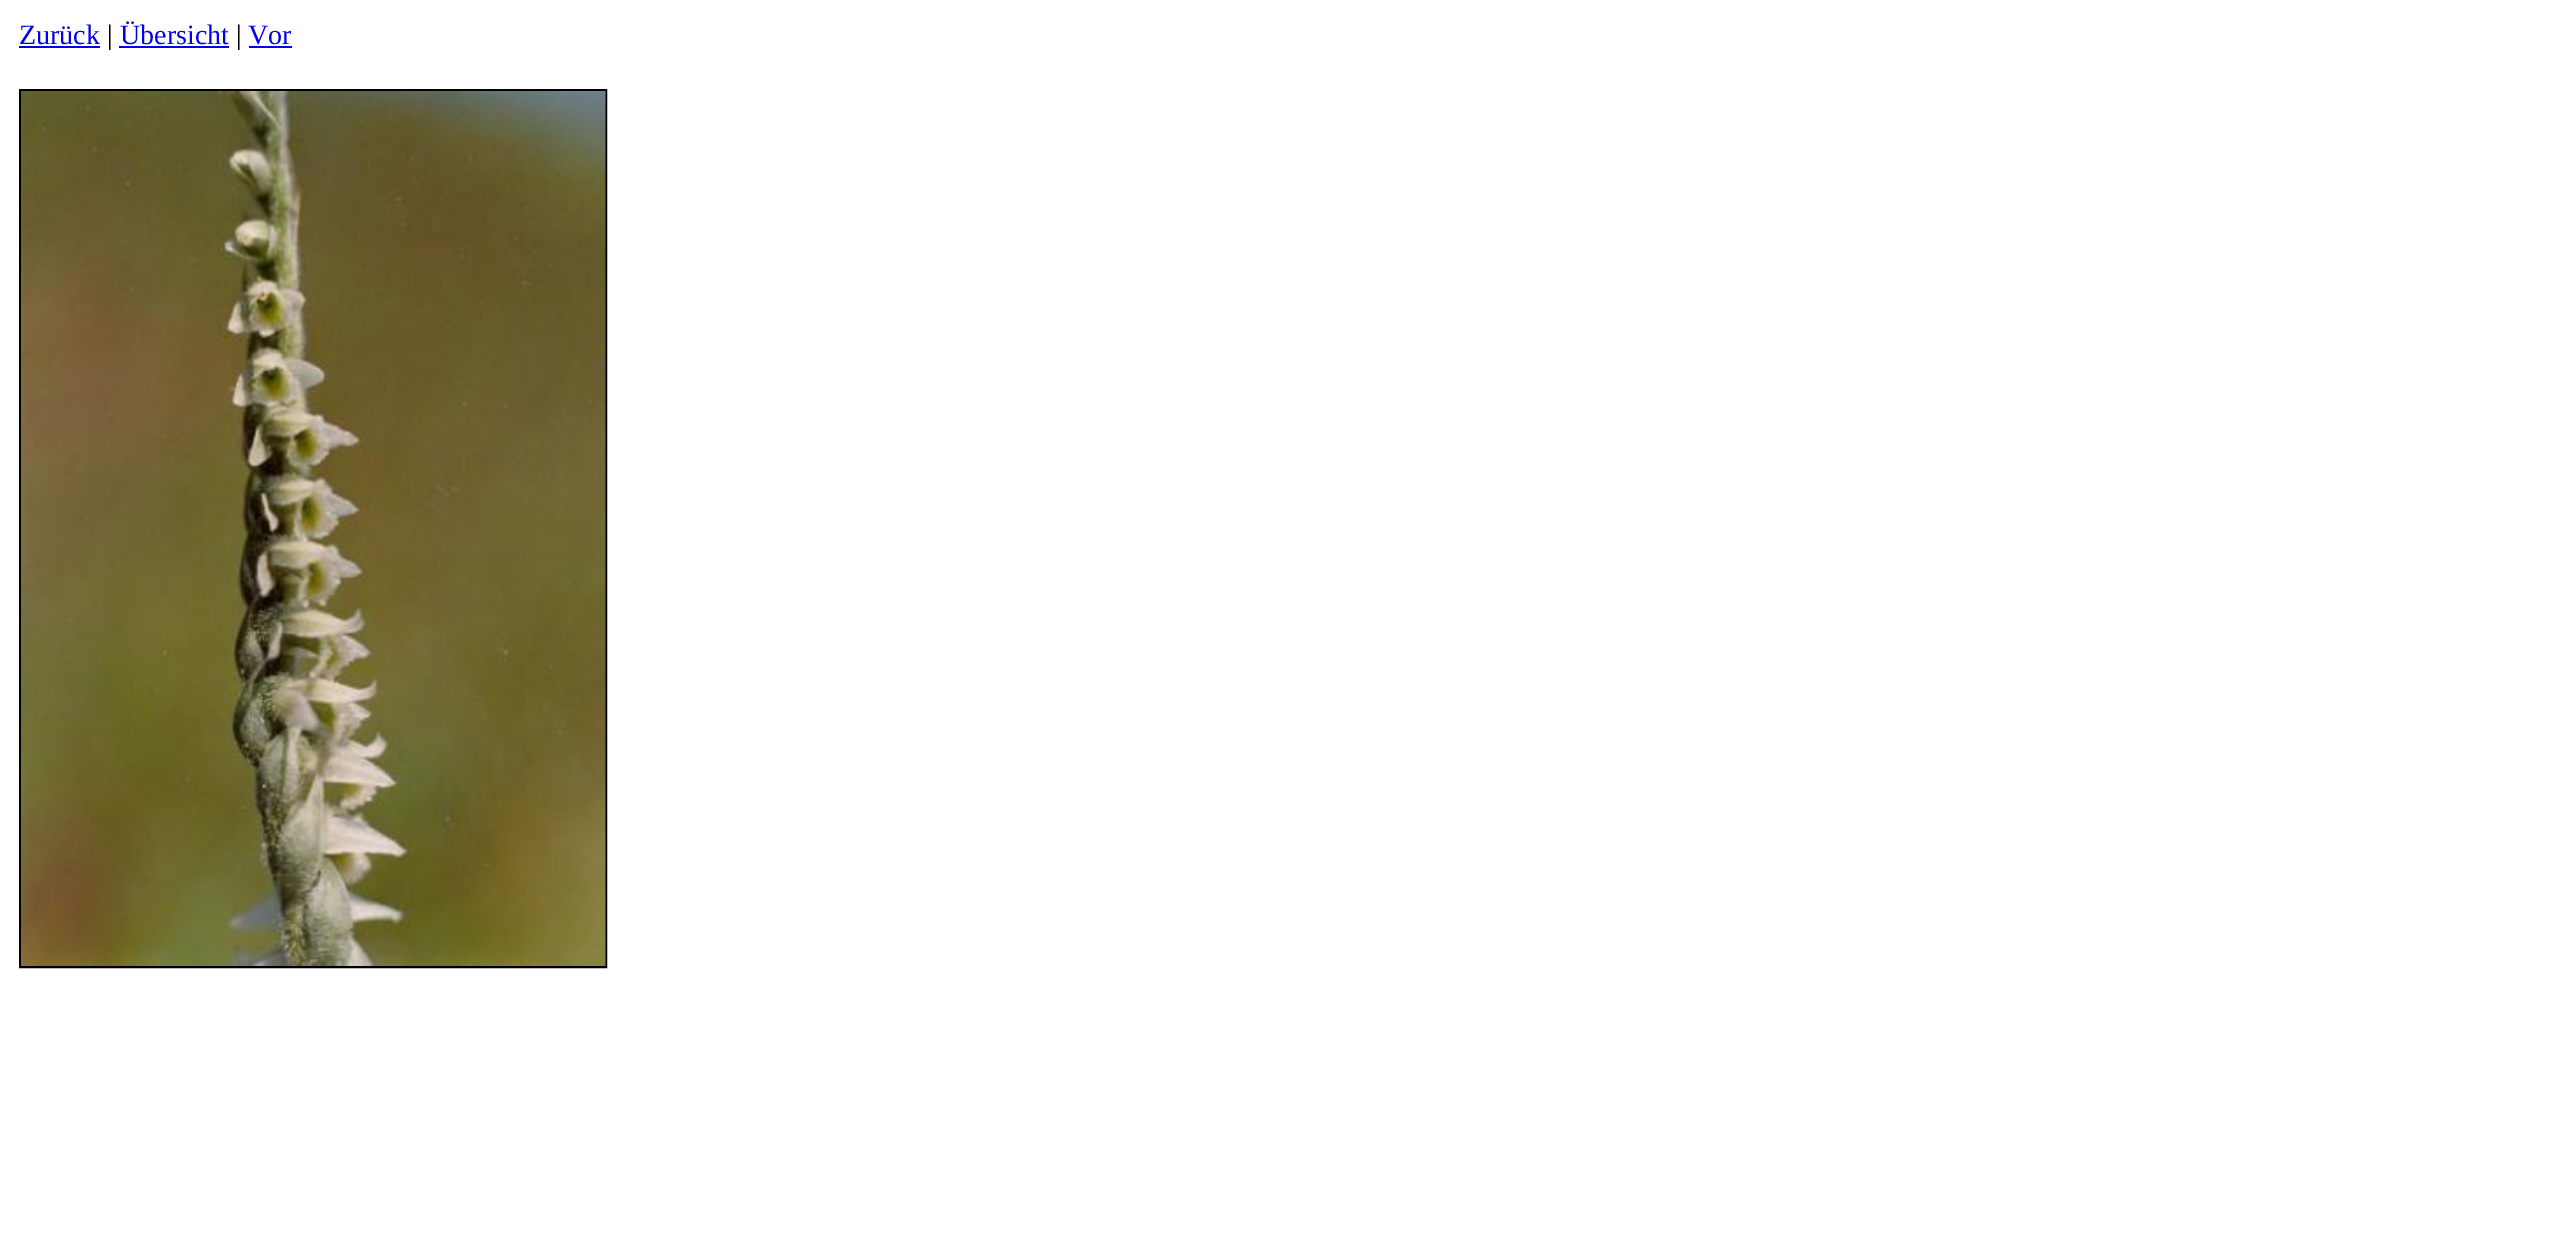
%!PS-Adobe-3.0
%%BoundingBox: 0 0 2572 1242
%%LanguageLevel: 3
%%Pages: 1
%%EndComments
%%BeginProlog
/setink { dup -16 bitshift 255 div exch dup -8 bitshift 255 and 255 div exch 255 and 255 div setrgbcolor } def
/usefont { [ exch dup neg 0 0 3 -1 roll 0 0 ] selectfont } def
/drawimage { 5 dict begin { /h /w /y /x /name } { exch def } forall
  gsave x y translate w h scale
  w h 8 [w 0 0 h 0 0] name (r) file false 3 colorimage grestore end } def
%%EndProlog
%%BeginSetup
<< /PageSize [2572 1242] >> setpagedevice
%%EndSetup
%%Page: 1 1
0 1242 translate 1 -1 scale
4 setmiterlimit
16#FFFFFF setink
0 0 2572 1242 rectfill
/LiberationSerif-Regular 28 usefont
16#0000EE setink
19 44 moveto (Zurück) show
19 46 81 2 rectfill
16#000000 setink
107 44 moveto (|) show
16#0000EE setink
120 44 moveto (Übersicht) show
119 46 110 2 rectfill
16#000000 setink
236 44 moveto (|) show
16#0000EE setink
248 44 moveto (Vor) show
249 46 43 2 rectfill
16#000000 setink
2 setlinewidth
20 90 586 877 rectstroke
(img1.raw) 21 91 585 875 drawimage
showpage
%%EOF
